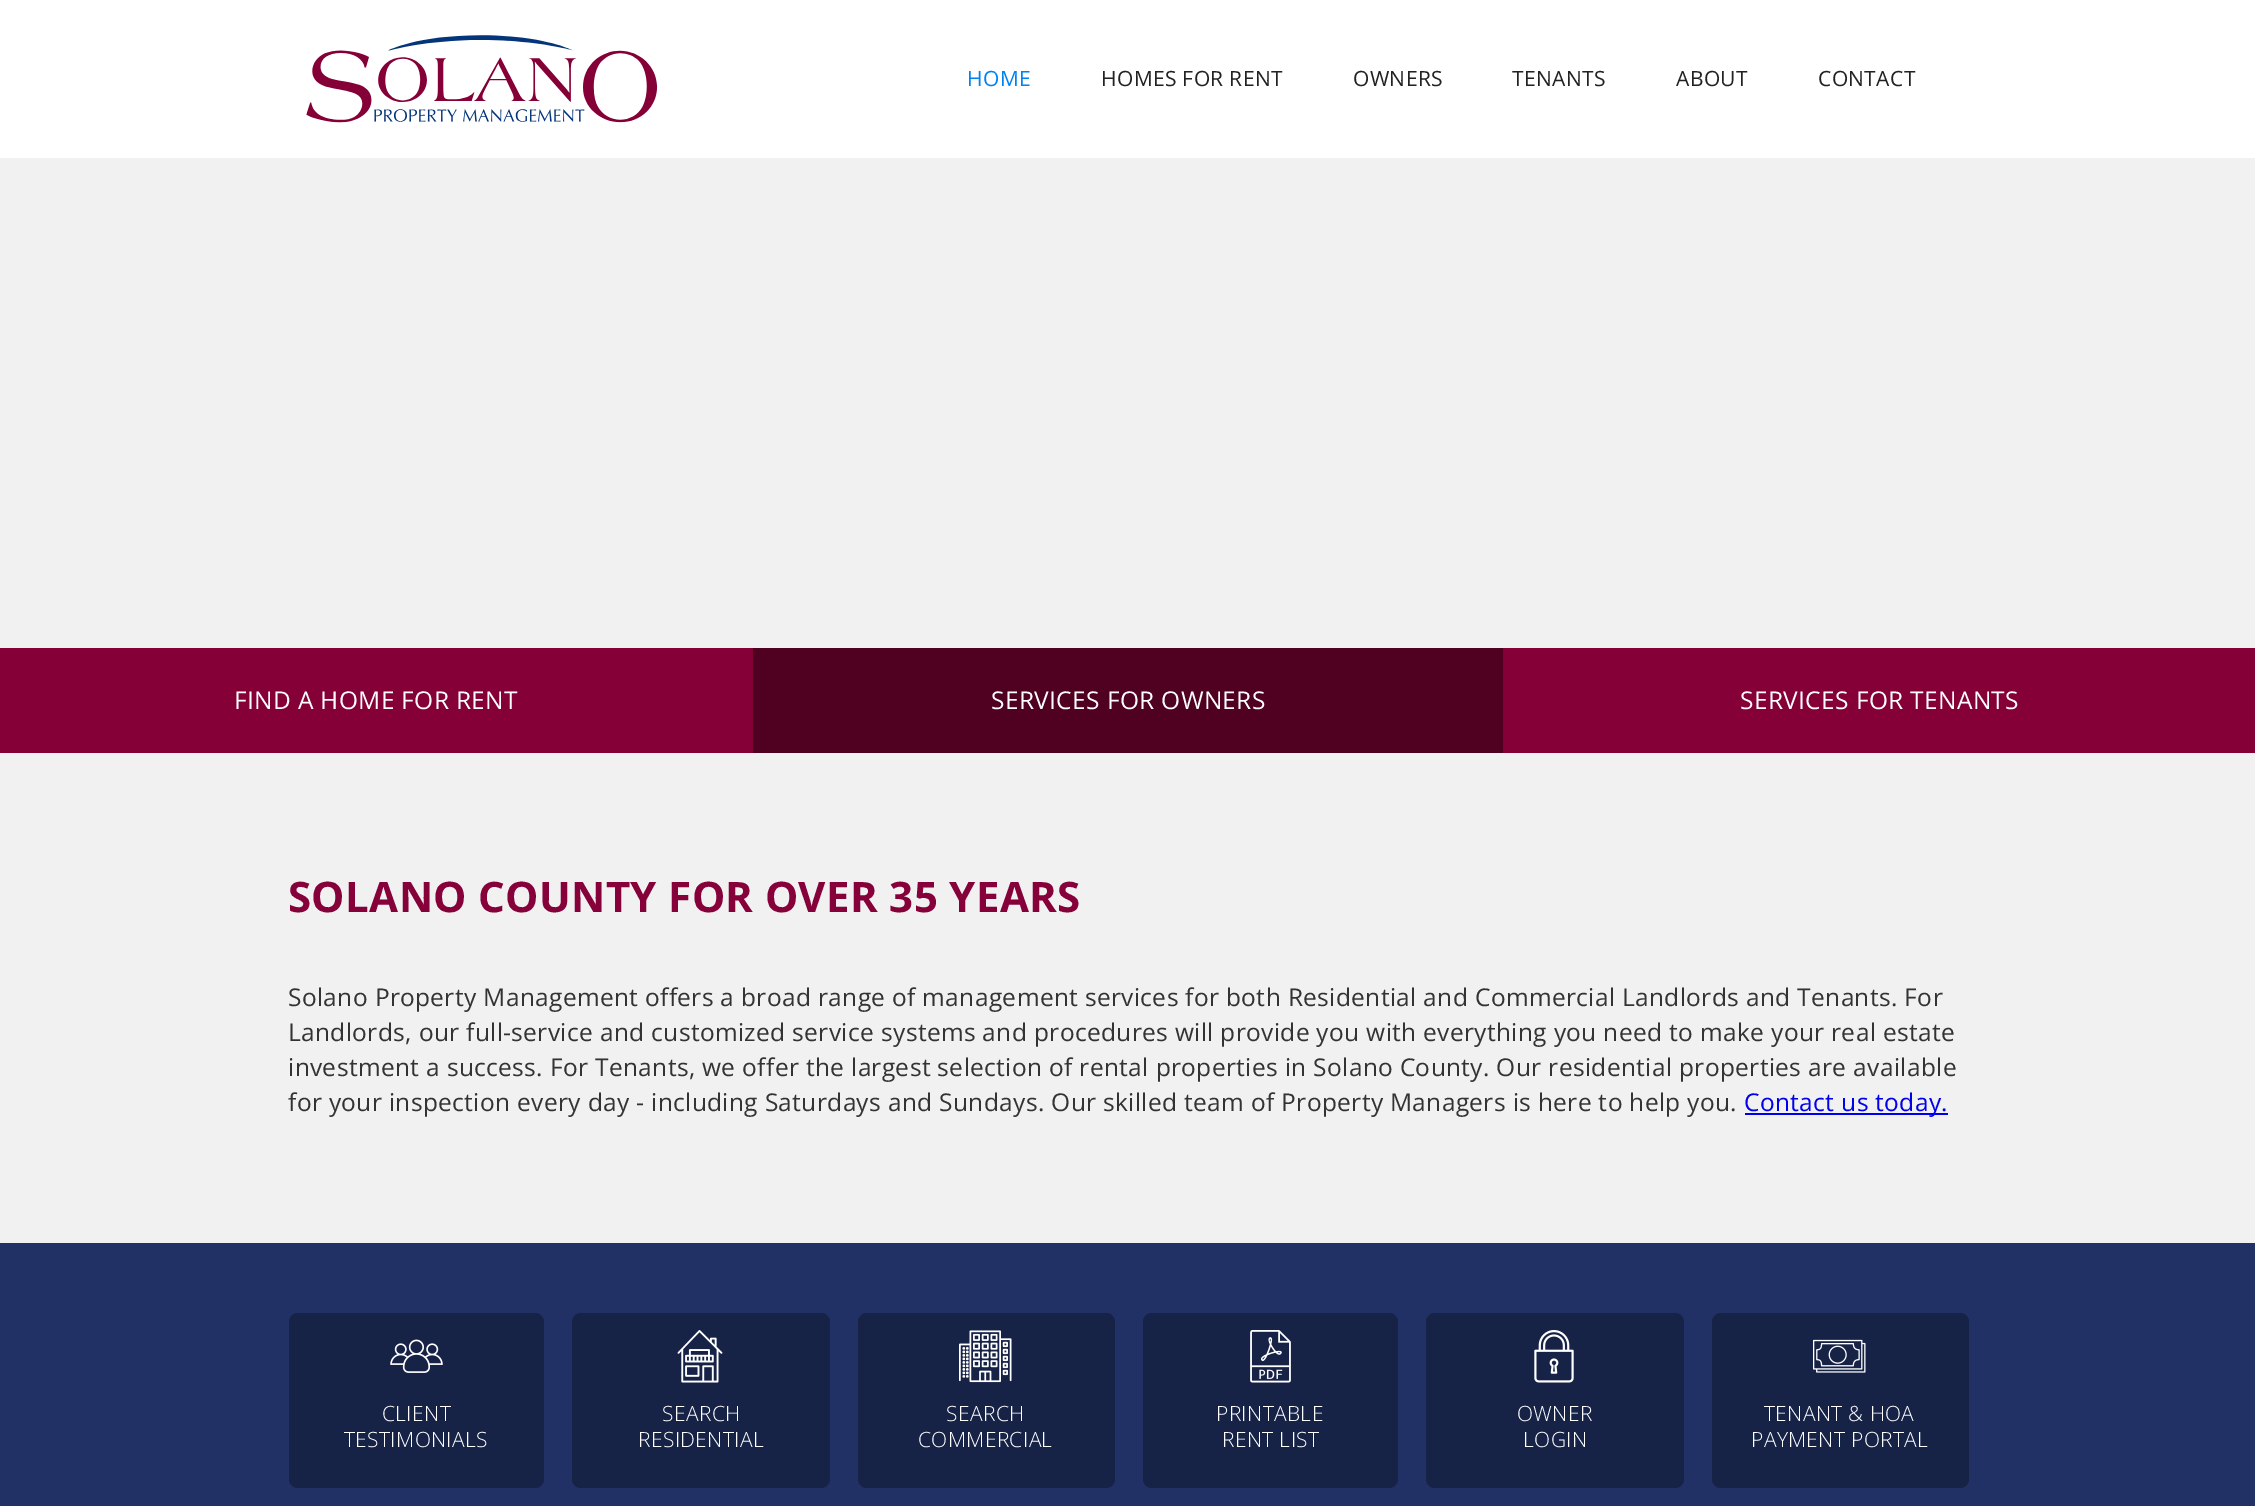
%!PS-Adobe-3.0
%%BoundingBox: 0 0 2255 1506
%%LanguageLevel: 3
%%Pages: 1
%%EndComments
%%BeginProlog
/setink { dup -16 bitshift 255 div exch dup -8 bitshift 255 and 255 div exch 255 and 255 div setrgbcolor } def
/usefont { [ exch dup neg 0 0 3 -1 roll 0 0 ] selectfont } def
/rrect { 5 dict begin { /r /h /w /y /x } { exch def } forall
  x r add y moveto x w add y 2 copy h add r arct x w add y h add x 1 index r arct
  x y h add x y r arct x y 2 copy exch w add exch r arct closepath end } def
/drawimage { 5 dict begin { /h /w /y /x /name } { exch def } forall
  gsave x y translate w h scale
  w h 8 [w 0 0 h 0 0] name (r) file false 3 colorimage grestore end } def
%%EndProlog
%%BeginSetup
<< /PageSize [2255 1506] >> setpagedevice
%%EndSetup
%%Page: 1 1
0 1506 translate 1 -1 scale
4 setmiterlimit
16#F1F1F1 setink
0 0 2255 1506 rectfill
16#FFFFFF setink
0 0 2255 158 rectfill
(img1.raw) 306 35 352 88 drawimage
/OpenSans-Regular 21 usefont
16#0082F3 setink
967 86 moveto 0.35 0 (HOME) ashow
16#222222 setink
1101 86 moveto 0.35 0 (HOMES FOR RENT) ashow
1353 86 moveto 0.35 0 (OWNERS) ashow
1512 86 moveto 0.35 0 (TENANTS) ashow
1676 86 moveto 0.35 0 (ABOUT) ashow
1818 86 moveto 0.35 0 (CONTACT) ashow
16#860038 setink
0 648 753 105 rectfill
/OpenSans-Regular 24.5 usefont
16#FFFFFF setink
234 709 moveto 0.35 0 (FIND A HOME FOR RENT) ashow
16#500021 setink
753 648 750 105 rectfill
16#FFFFFF setink
991 709 moveto 0.35 0 (SERVICES FOR OWNERS) ashow
16#860038 setink
1503 648 752 105 rectfill
16#FFFFFF setink
1740 709 moveto 0.35 0 (SERVICES FOR TENANTS) ashow
/OpenSans-Bold 42 usefont
16#86013A setink
288 912 moveto 0.35 0 (SOLANO COUNTY FOR OVER 35 YEARS) ashow
/OpenSans-Regular 24.5 usefont
16#333333 setink
288 1006 moveto 0.35 0 (Solano Property Management offers a broad range of management services for both Residential and Commercial Landlords and Tenants. For) ashow
288 1041 moveto 0.35 0 (Landlords, our full-service and customized service systems and procedures will provide you with everything you need to make your real estate) ashow
288 1076 moveto 0.35 0 (investment a success. For Tenants, we offer the largest selection of rental properties in Solano County. Our residential properties are available) ashow
288 1111 moveto 0.35 0 (for your inspection every day - including Saturdays and Sundays. Our skilled team of Property Managers is here to help you.) ashow
16#0000EE setink
1745 1113 203 2 rectfill
1744 1111 moveto 0.35 0 (Contact us today.) ashow
16#223165 setink
0 1243 2255 263 rectfill
16#172247 setink
289 1313 255 175 9 rrect fill
(img2.raw) 390 1339 53 34 drawimage
/OpenSans-Light 21 usefont
16#FFFFFF setink
382 1421 moveto 0.35 0 (CLIENT) ashow
344 1447 moveto 0.35 0 (TESTIMONIALS) ashow
16#172247 setink
572 1313 258 175 9 rrect fill
(img3.raw) 677 1330 46 53 drawimage
16#FFFFFF setink
662 1421 moveto 0.35 0 (SEARCH) ashow
638 1447 moveto 0.35 0 (RESIDENTIAL) ashow
16#172247 setink
858 1313 257 175 9 rrect fill
(img4.raw) 959 1330 53 53 drawimage
16#FFFFFF setink
946 1421 moveto 0.35 0 (SEARCH) ashow
918 1447 moveto 0.35 0 (COMMERCIAL) ashow
16#172247 setink
1143 1313 255 175 9 rrect fill
(img5.raw) 1250 1330 41 53 drawimage
16#FFFFFF setink
1216 1421 moveto 0.35 0 (PRINTABLE) ashow
1222 1447 moveto 0.35 0 (RENT LIST) ashow
16#172247 setink
1426 1313 258 175 9 rrect fill
(img6.raw) 1534 1330 40 53 drawimage
16#FFFFFF setink
1517 1421 moveto 0.35 0 (OWNER) ashow
1523 1447 moveto 0.35 0 (LOGIN) ashow
16#172247 setink
1712 1313 257 175 9 rrect fill
(img7.raw) 1813 1339 53 34 drawimage
16#FFFFFF setink
1764 1421 moveto 0.35 0 (TENANT & HOA) ashow
1751 1447 moveto 0.35 0 (PAYMENT PORTAL) ashow
showpage
%%EOF
